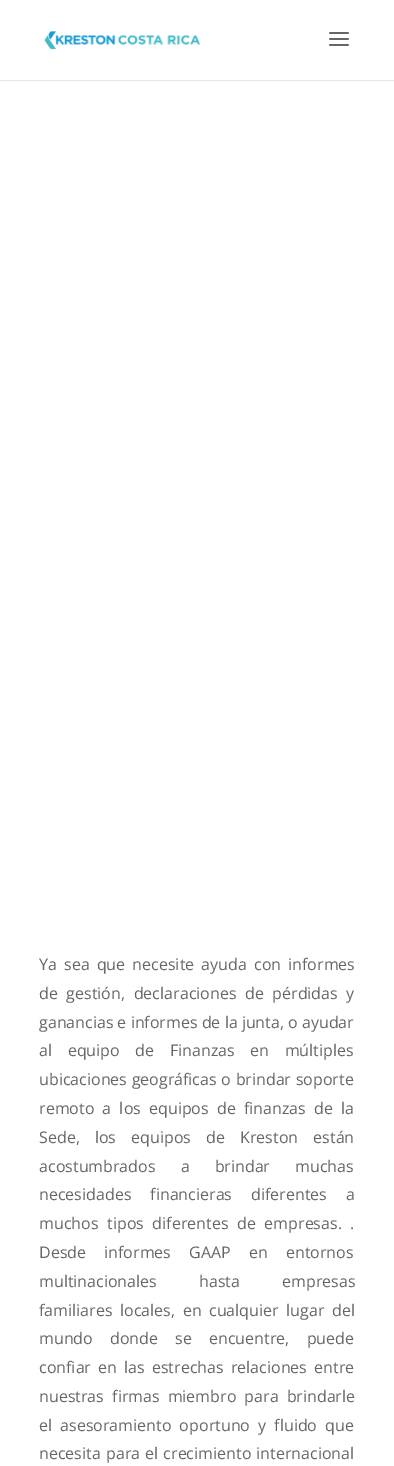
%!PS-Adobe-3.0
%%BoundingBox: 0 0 394 1466
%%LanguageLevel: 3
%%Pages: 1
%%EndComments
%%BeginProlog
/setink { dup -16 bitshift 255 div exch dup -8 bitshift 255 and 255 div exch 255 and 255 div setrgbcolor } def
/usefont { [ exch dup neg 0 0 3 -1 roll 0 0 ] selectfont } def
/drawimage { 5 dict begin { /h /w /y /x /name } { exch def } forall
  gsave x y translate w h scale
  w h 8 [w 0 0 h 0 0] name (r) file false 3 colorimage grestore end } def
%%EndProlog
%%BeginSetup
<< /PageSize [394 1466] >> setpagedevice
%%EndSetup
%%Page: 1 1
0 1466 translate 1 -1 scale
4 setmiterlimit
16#FFFFFF setink
0 0 394 1466 rectfill
16#E6E6E6 setink
0 80 394 1 rectfill
(img1.raw) 44 31 157 19 drawimage
(img2.raw) 329 32 20 14 drawimage
/OpenSans-Regular 16 usefont
16#666666 setink
39 970 moveto 3 0 32 (Ya sea que necesite ayuda con informes) widthshow
39 999 moveto 4.5 0 32 (de gestión, declaraciones de pérdidas y) widthshow
39 1028 moveto (ganancias e informes de la junta, o ayudar) show
39 1056 moveto 11.5 0 32 (al equipo de Finanzas en múltiples) widthshow
39 1085 moveto 0.5 0 32 (ubicaciones geográficas o brindar soporte) widthshow
39 1114 moveto 4 0 32 (remoto a los equipos de finanzas de la) widthshow
39 1143 moveto 11 0 32 (Sede, los equipos de Kreston están) widthshow
39 1172 moveto 21 0 32 (acostumbrados a brindar muchas) widthshow
39 1200 moveto 15 0 32 (necesidades financieras diferentes a) widthshow
39 1229 moveto 4.5 0 32 (muchos tipos diferentes de empresas. .) widthshow
39 1258 moveto 14 0 32 (Desde informes GAAP en entornos) widthshow
39 1287 moveto 38 0 32 (multinacionales hasta empresas) widthshow
39 1316 moveto 3.5 0 32 (familiares locales, en cualquier lugar del) widthshow
39 1344 moveto 13 0 32 (mundo donde se encuentre, puede) widthshow
39 1373 moveto 3 0 32 (confiar en las estrechas relaciones entre) widthshow
39 1402 moveto 4 0 32 (nuestras firmas miembro para brindarle) widthshow
39 1431 moveto 4 0 32 (el asesoramiento oportuno y fluido que) widthshow
39 1459 moveto 1 0 32 (necesita para el crecimiento internacional) widthshow
showpage
%%EOF
